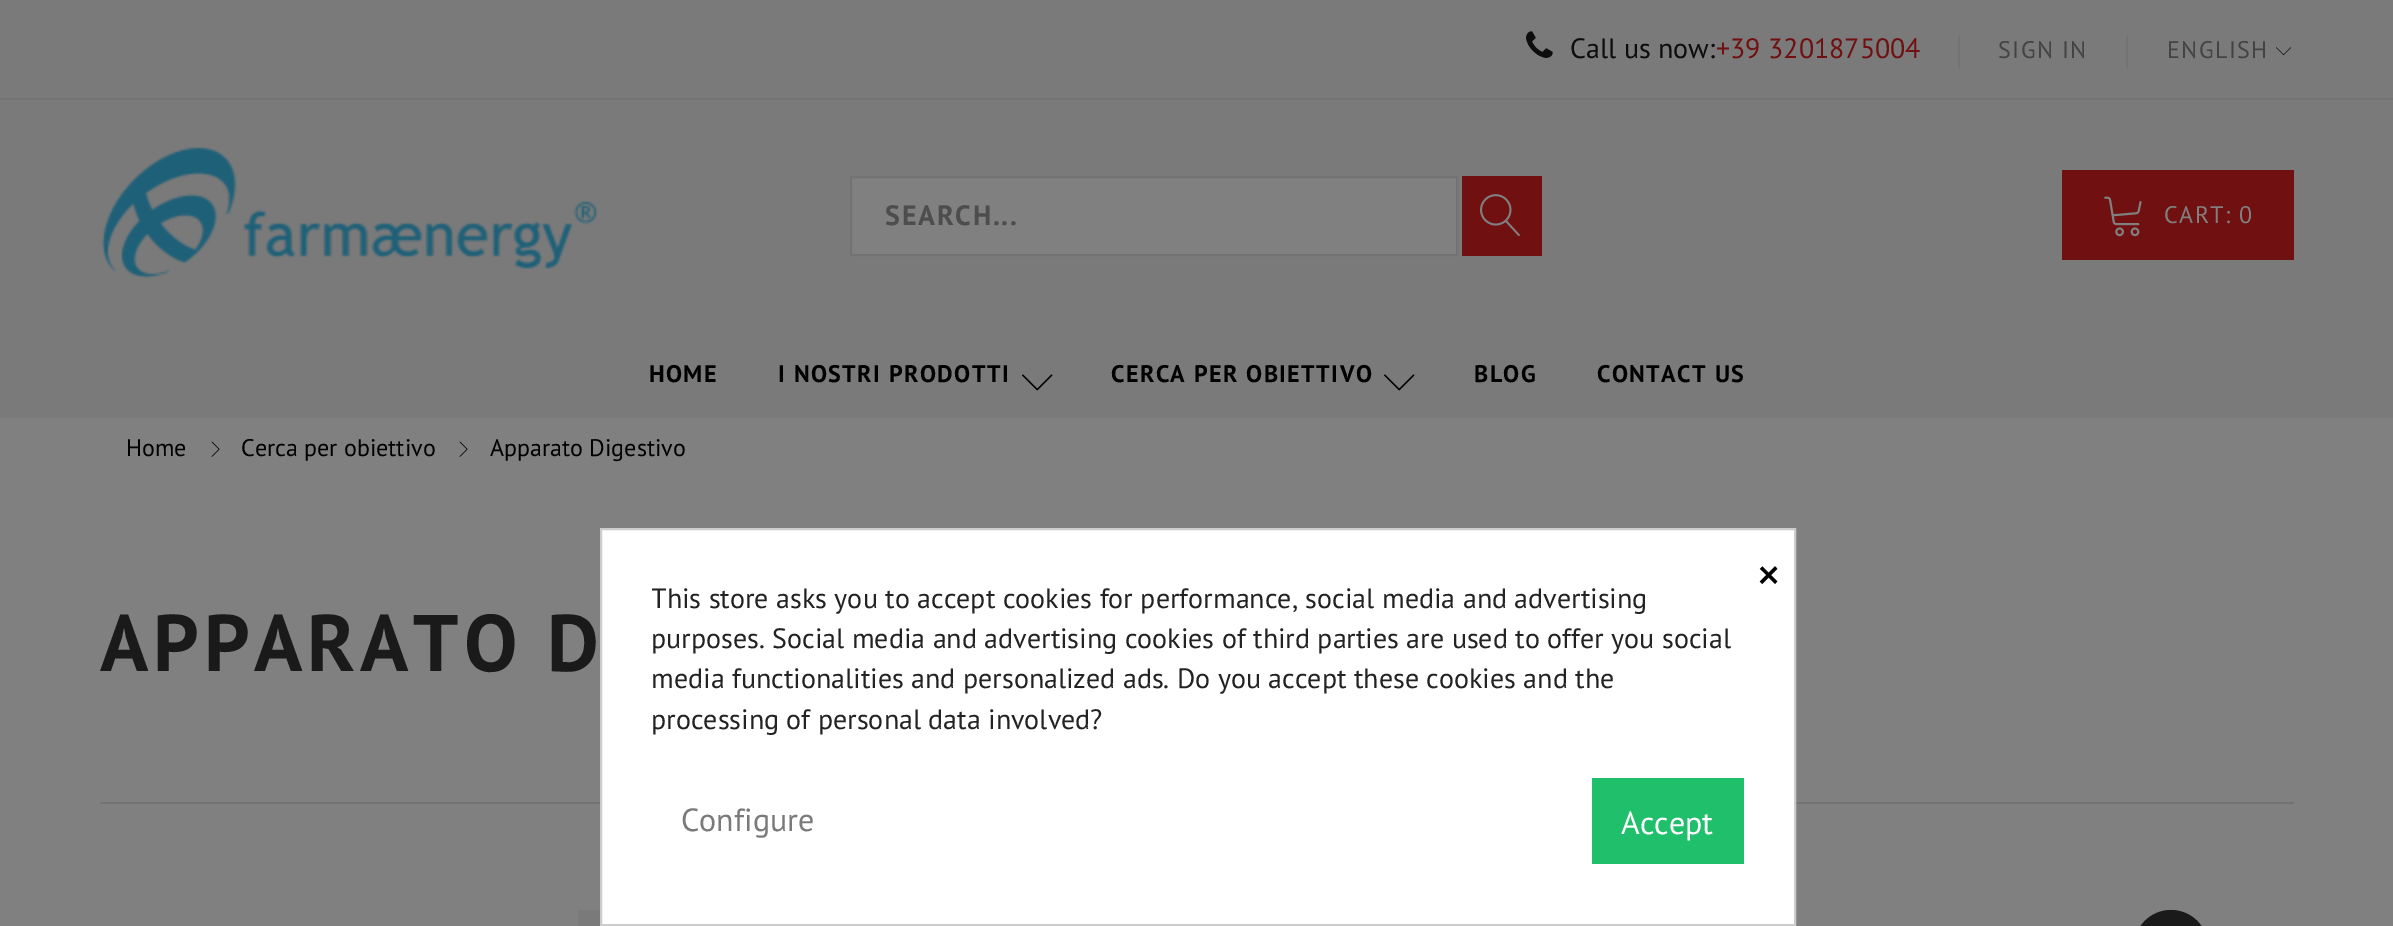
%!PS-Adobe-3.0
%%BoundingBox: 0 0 2393 926
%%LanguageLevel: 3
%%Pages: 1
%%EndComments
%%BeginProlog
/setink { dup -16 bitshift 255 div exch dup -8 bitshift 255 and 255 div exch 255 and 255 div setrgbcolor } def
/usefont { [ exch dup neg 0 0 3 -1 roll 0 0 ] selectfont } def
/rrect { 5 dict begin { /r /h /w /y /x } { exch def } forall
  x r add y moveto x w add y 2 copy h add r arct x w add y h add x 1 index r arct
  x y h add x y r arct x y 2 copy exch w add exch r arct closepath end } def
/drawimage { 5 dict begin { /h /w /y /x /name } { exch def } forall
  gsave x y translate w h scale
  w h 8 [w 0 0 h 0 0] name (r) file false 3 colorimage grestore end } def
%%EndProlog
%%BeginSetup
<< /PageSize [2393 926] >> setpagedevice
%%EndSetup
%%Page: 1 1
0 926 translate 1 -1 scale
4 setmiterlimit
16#808080 setink
0 0 2393 926 rectfill
16#7A7A7A setink
0 0 2393 98 rectfill
16#737373 setink
0 98 2393 2 rectfill
(img1.raw) 1526 31 27 27 drawimage
/PTSans-Regular 28 usefont
16#0D0D0D setink
1570 58 moveto (Call us now:) show
16#711010 setink
1716 58 moveto (+39 3201875004) show
16#737373 setink
1958 36 2 32 rectfill
/PTSans-Regular 24 usefont
16#444444 setink
1998 58 moveto 1.4 0 (SIGN IN) ashow
16#737373 setink
2126 36 2 32 rectfill
16#444444 setink
2167 58 moveto 1.4 0 (ENGLISH) ashow
(img2.raw) 2276 47 16 9 drawimage
16#7A7A7A setink
0 100 2393 318 rectfill
(img3.raw) 101 146 497 133 drawimage
16#808080 setink
851 177 moveto 1457 177 lineto 1457 255 lineto 851 255 lineto closepath gsave fill grestore
16#737373 setink
2 setlinewidth
stroke
/PTSans-Bold 28 usefont
16#4D4D4D setink
885 225 moveto 1.75 0 (SEARCH...) ashow
16#711010 setink
1462 176 80 80 rectfill
(img4.raw) 1480 194 40 43 drawimage
2062 170 232 90 rectfill
(img5.raw) 2104 196 38 41 drawimage
/PTSans-Regular 24 usefont
16#808080 setink
2164 223 moveto 1.4 0 (CART: 0) ashow
/PTSans-Bold 24 usefont
16#000000 setink
649 382 moveto 1.4 0 (HOME) ashow
778 382 moveto 1.4 0 (I NOSTRI PRODOTTI) ashow
(img6.raw) 1022 374 31 17 drawimage
1111 382 moveto 1.4 0 (CERCA PER OBIETTIVO) ashow
(img6.raw) 1384 374 31 17 drawimage
1474 382 moveto 1.4 0 (BLOG) ashow
1597 382 moveto 1.4 0 (CONTACT US) ashow
/PTSans-Regular 24 usefont
126 456 moveto (Home) show
(img7.raw) 211 441 9 16 drawimage
241 456 moveto (Cerca per obiettivo) show
(img7.raw) 459 441 9 16 drawimage
490 456 moveto (Apparato Digestivo) show
16#737373 setink
100 802 2194 2 rectfill
/PTSans-Bold 80 usefont
16#1A1A1A setink
100 671 moveto 4.75 0 (APPARATO D) ashow
16#7A7A7A setink
578 910 22 16 rectfill
16#1A1A1A setink
2134 910 74 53 37 rrect fill
16#FFFFFF setink
601 529 moveto 1795 529 lineto 1795 925 lineto 601 925 lineto closepath gsave fill grestore
16#CCCCCC setink
stroke
/PTSans-Regular 50 usefont
16#000000 setink
1756 592 moveto (×) show
gsave
652 578 1092 160 rectclip
/PTSans-Regular 28 usefont
16#232323 setink
651 608 moveto (This store asks you to accept cookies for performance, social media and advertising) show
grestore
/PTSans-Regular 28 usefont
16#232323 setink
[
    [(purposes. Social media and advertising cookies of third parties are used to offer you social) 651 648]
    [(media functionalities and personalized ads. Do you accept these cookies and the) 651 688]
    [(processing of personal data involved?) 651 729]
] { aload pop moveto show } forall
/PTSans-Regular 32 usefont
16#7A7A7A setink
681 831 moveto (Configure) show
16#20BF6B setink
1592 778 152 86 rectfill
16#FFFFFF setink
1621 834 moveto (Accept) show
showpage
%%EOF
